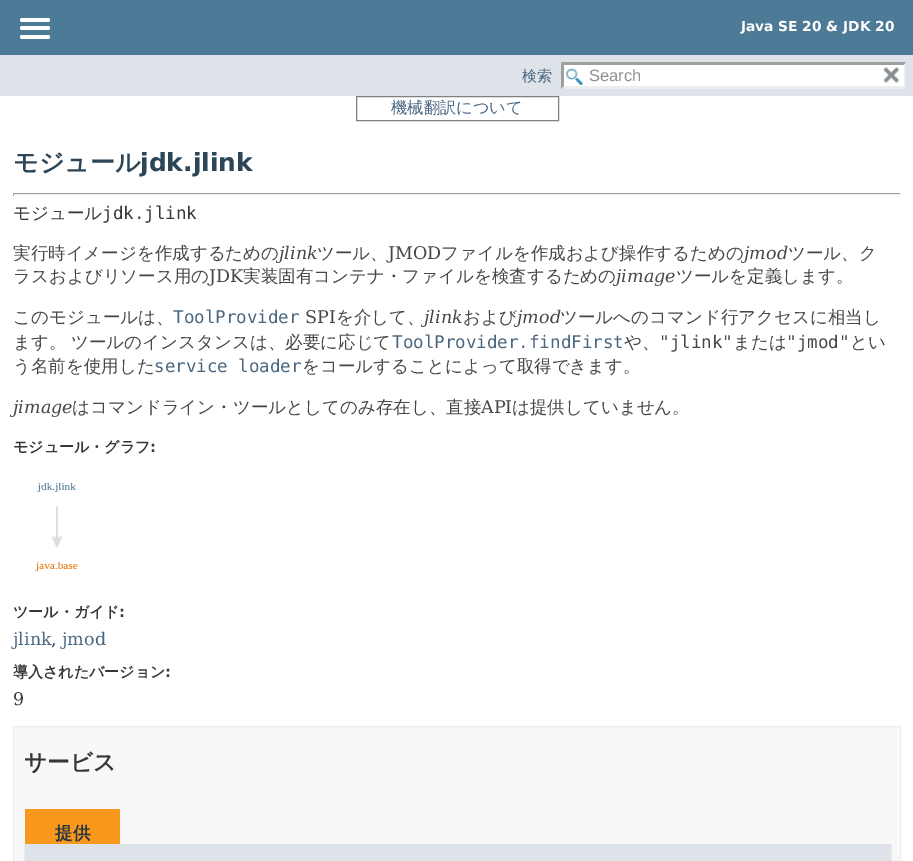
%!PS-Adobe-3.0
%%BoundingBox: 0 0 913 861
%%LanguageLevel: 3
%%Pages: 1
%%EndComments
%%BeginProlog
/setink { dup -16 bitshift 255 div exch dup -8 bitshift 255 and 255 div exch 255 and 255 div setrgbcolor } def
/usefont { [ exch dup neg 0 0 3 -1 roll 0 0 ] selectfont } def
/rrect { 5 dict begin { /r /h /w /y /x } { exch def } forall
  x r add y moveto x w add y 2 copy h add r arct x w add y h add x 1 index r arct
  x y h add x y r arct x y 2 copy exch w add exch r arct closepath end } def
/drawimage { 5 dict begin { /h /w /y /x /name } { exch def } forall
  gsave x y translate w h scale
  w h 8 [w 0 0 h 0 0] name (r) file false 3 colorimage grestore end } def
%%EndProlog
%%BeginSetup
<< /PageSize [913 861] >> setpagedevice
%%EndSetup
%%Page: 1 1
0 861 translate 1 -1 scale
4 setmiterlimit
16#FFFFFF setink
0 0 913 861 rectfill
16#4D7A97 setink
0 0 913 55 rectfill
16#FFFFFF setink
20 18 30 4 2 rrect fill
20 26 30 4 2 rrect fill
20 35 30 4 2 rrect fill
/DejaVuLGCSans-Bold 13.75 usefont
741 31 moveto (Java SE 20 & JDK 20) show
16#DEE3E9 setink
0 55 913 41 rectfill
/WenQuanYiZenHei-Medium 15 usefont
16#4A6782 setink
522 81 moveto (検索) show
16#FFFFFF setink
561 63 345 26 rectfill
(img1.raw) 566 68 17 17 drawimage
16#9E9E9E setink
561 62 moveto 906 62 lineto 904 65 lineto 564 65 lineto closepath fill
16#EDEDED setink
906 62.5 moveto 906 89 lineto 904 86 lineto 904 65 lineto closepath fill
906 89 moveto 561 89 lineto 564 86 lineto 904 86 lineto closepath fill
16#9E9E9E setink
561 89 moveto 561 62.5 lineto 564 65 lineto 564 86 lineto closepath fill
/LiberationSans-Regular 16.5 usefont
16#909090 setink
589 81 moveto (Search) show
(img2.raw) 883 67 16 16 drawimage
16#808080 setink
356.5 96.5 202 24 rectstroke
/WenQuanYiZenHei-Medium 16.25 usefont
16#4A6782 setink
391 113 moveto (機械翻訳について) show
/WenQuanYiZenHei-Bold 25 usefont
16#2C4557 setink
13 171 moveto (モジュール) show
/DejaVuLGCSans-Bold 25 usefont
140 171 moveto (jdk.jlink) show
[
    [13 193 888 1 16#9F9F9F]
    [900 193 1 3 16#EEEEEE]
    [13 194 888 1 16#EEEEEE]
    [13 193 1 3 16#9F9F9F]
] { aload pop setink rectfill } forall
/WenQuanYiZenHei-Medium 17.5 usefont
16#353833 setink
13 219 moveto (モジュール) show
/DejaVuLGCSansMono-Regular 17.5 usefont
102 219 moveto (jdk.jlink) show
/WenQuanYiZenHei-Medium 17.5 usefont
16#474747 setink
13 259 moveto (実行時イメージを作成するための) show
/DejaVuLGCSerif-Italic 17.5 usefont
279 259 moveto (jlink) show
/WenQuanYiZenHei-Medium 17.5 usefont
317 259 moveto (ツール、) show
/DejaVuLGCSerif-Regular 17.5 usefont
388 259 moveto (JMOD) show
/WenQuanYiZenHei-Medium 17.5 usefont
441 259 moveto (ファイルを作成および操作するための) show
/DejaVuLGCSerif-Italic 17.5 usefont
744 259 moveto (jmod) show
/WenQuanYiZenHei-Medium 17.5 usefont
788 259 moveto (ツール、ク) show
13 282 moveto (ラスおよびリソース用の) show
/DejaVuLGCSerif-Regular 17.5 usefont
209 282 moveto (JDK) show
/WenQuanYiZenHei-Medium 17.5 usefont
243 282 moveto (実装固有コンテナ・ファイルを検査するための) show
/DejaVuLGCSerif-Italic 17.5 usefont
616 282 moveto (jimage) show
/WenQuanYiZenHei-Medium 17.5 usefont
676 282 moveto (ツールを定義します。) show
13 323 moveto (このモジュールは、) show
/DejaVuLGCSansMono-Regular 17.5 usefont
16#4A6782 setink
173 323 moveto (ToolProvider) show
/DejaVuLGCSerif-Regular 17.5 usefont
16#474747 setink
305 323 moveto (SPI) show
/WenQuanYiZenHei-Medium 17.5 usefont
336 323 moveto (を介して、) show
/DejaVuLGCSerif-Italic 17.5 usefont
424 323 moveto (jlink) show
/WenQuanYiZenHei-Medium 17.5 usefont
463 323 moveto (および) show
/DejaVuLGCSerif-Italic 17.5 usefont
517 323 moveto (jmod) show
/WenQuanYiZenHei-Medium 17.5 usefont
[
    [(ツールへのコマンド行アクセスに相当し) 560 323]
    [(ます。) 13 348]
    [(ツールのインスタンスは、必要に応じて) 71 348]
] { aload pop moveto show } forall
/DejaVuLGCSansMono-Regular 17.5 usefont
16#4A6782 setink
392 348 moveto (ToolProvider.findFirst) show
/WenQuanYiZenHei-Medium 17.5 usefont
16#474747 setink
624 348 moveto (や、) show
/DejaVuLGCSansMono-Regular 17.5 usefont
659 348 moveto ("jlink") show
/WenQuanYiZenHei-Medium 17.5 usefont
733 348 moveto (または) show
/DejaVuLGCSansMono-Regular 17.5 usefont
786 348 moveto ("jmod") show
/WenQuanYiZenHei-Medium 17.5 usefont
850 348 moveto (とい) show
13 372 moveto (う名前を使用した) show
/DejaVuLGCSansMono-Regular 17.5 usefont
16#4A6782 setink
154 372 moveto (service loader) show
/WenQuanYiZenHei-Medium 17.5 usefont
16#474747 setink
302 372 moveto (をコールすることによって取得できます。) show
/DejaVuLGCSerif-Italic 17.5 usefont
13 413 moveto (jimage) show
/WenQuanYiZenHei-Medium 17.5 usefont
72 413 moveto (はコマンドライン・ツールとしてのみ存在し、直接) show
/DejaVuLGCSerif-Regular 17.5 usefont
481 413 moveto (API) show
/WenQuanYiZenHei-Medium 17.5 usefont
512 413 moveto (は提供していません。) show
/WenQuanYiZenHei-Bold 15 usefont
16#353833 setink
13 452 moveto (モジュール・グラフ) show
/DejaVuLGCSans-Bold 15 usefont
150 452 moveto (:) show
(img3.raw) 35 483 43 88 drawimage
/WenQuanYiZenHei-Bold 15 usefont
13 617 moveto (ツール・ガイド) show
/DejaVuLGCSans-Bold 15 usefont
119 617 moveto (:) show
/DejaVuLGCSerif-Regular 17.5 usefont
16#4A6782 setink
13 645 moveto (jlink) show
16#353833 setink
51 645 moveto (,) show
16#4A6782 setink
62 645 moveto (jmod) show
/WenQuanYiZenHei-Bold 15 usefont
16#353833 setink
13 677 moveto (導入されたバージョン) show
/DejaVuLGCSans-Bold 15 usefont
165 677 moveto (:) show
/DejaVuLGCSerif-Regular 17.5 usefont
13 705 moveto (9) show
16#F8F8F8 setink
13.5 726.5 moveto 900.5 726.5 lineto 900.5 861.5 lineto 13.5 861.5 lineto closepath gsave fill grestore
16#EDEDED setink
stroke
/WenQuanYiZenHei-Bold 22.5 usefont
16#353833 setink
24 770 moveto (サービス) show
16#F8981D setink
25 809 95 35 rectfill
/WenQuanYiZenHei-Bold 17.5 usefont
16#253441 setink
55 839 moveto (提供) show
[
    [891 844 1 17 16#EDEDED]
    [24 844 1 17 16#EDEDED]
    [25 844 866 17 16#DEE3E9]
] { aload pop setink rectfill } forall
showpage
%%EOF
